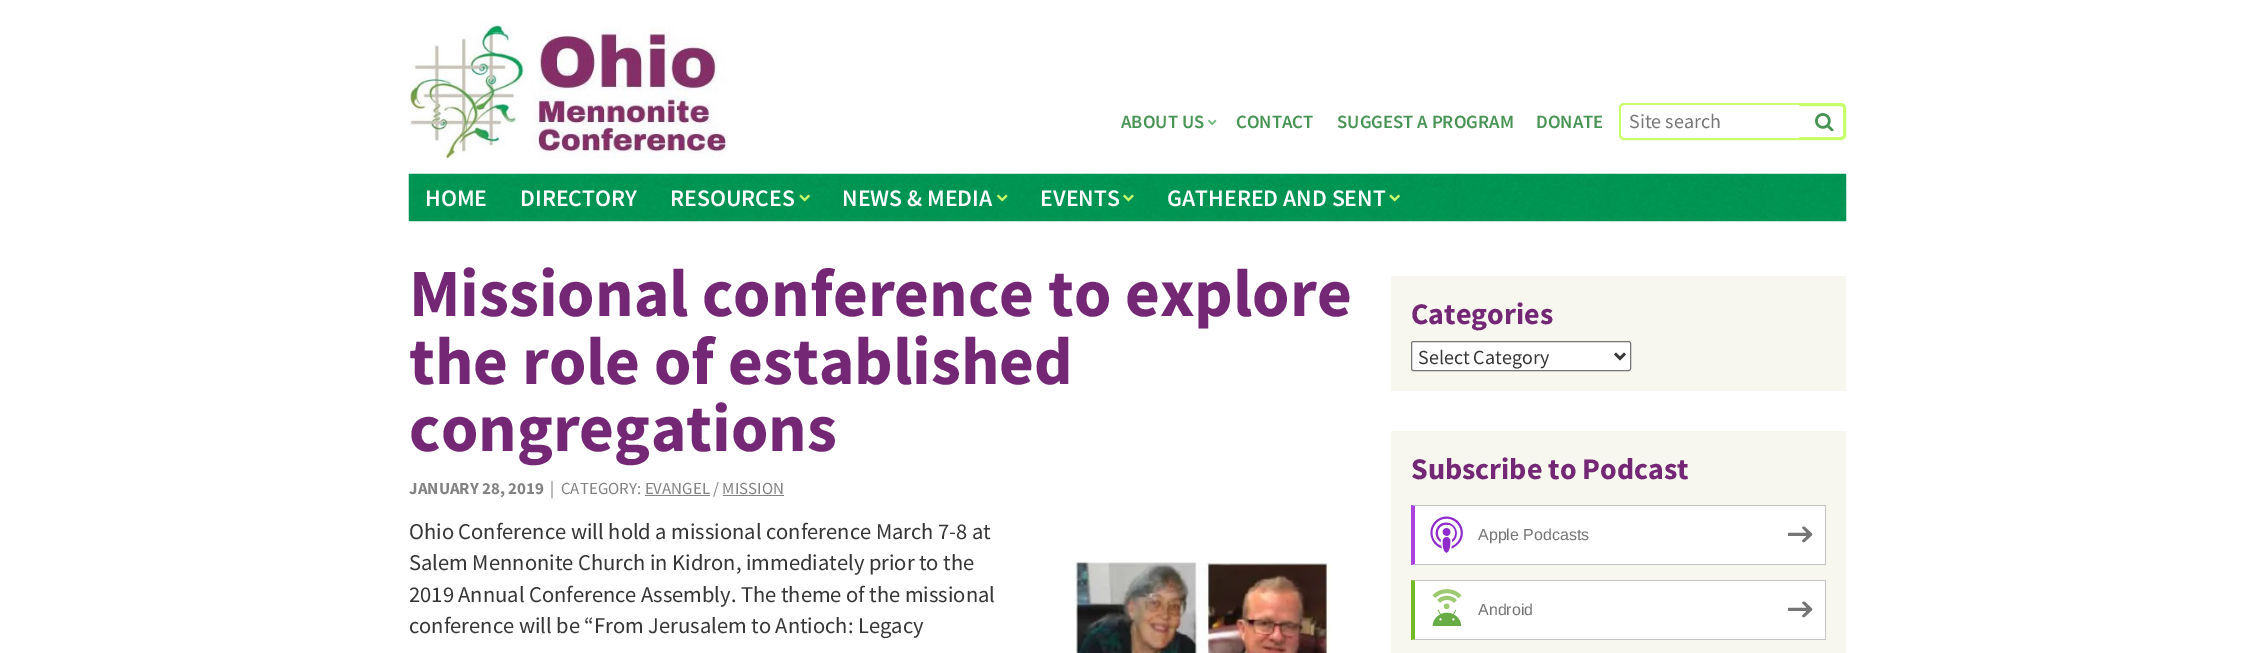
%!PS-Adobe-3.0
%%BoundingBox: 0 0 2255 653
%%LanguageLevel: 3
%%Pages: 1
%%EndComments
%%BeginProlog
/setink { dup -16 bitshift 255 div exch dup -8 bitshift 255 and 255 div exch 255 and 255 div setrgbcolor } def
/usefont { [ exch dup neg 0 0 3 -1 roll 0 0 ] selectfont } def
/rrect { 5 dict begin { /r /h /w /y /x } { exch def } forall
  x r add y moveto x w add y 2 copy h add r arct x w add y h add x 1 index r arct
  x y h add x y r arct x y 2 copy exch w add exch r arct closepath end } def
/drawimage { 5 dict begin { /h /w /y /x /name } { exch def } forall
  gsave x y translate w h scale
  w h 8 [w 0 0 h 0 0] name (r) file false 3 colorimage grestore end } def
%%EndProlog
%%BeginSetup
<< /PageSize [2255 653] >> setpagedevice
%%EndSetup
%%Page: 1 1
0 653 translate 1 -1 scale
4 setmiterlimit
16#FFFFFF setink
0 0 2255 653 rectfill
(img1.raw) 409 22 319 137 drawimage
/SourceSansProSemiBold-SemiBold 18.75 usefont
16#489454 setink
1121 128 moveto (ABOUT US) show
(img2.raw) 1208 119 9 7 drawimage
[
    [(CONTACT) 1236 128]
    [(SUGGEST A PROGRAM) 1337 128]
    [(DONATE) 1536 128]
] { aload pop moveto show } forall
16#C8FD6B setink
3 setlinewidth
1620.5 104.5 224 34 3.5 rrect stroke
16#FFFFFF setink
1621 105 180 33 4 rrect fill
/SourceSansPro-Regular 20 usefont
16#757575 setink
1629 128 moveto (Site search) show
(img3.raw) 1815 113 19 18 drawimage
(img4.raw) 408 173 1439 49 drawimage
/SourceSansProSemiBold-SemiBold 23.75 usefont
16#FFFFFF setink
[
    [(HOME) 425 206]
    [(DIRECTORY) 520 206]
    [(RESOURCES) 670 206]
] { aload pop moveto show } forall
(img5.raw) 799 194 11 8 drawimage
842 206 moveto (NEWS & MEDIA) show
(img6.raw) 996 194 12 8 drawimage
1040 206 moveto (EVENTS) show
(img7.raw) 1123 194 11 8 drawimage
1167 206 moveto (GATHERED AND SENT) show
(img8.raw) 1389 194 11 8 drawimage
/SourceSansPro-Bold 67.5 usefont
16#732774 setink
[
    [(Missional conference to explore) 409 316]
    [(the role of established) 409 384]
    [(congregations) 409 451]
] { aload pop moveto show } forall
/SourceSansPro-Bold 16.9 usefont
16#848282 setink
409 494 moveto (JANUARY 28, 2019) show
/SourceSansPro-Regular 16.9 usefont
550 494 moveto (|  CATEGORY: EVANGEL / MISSION) show
645 495 65 1 rectfill
723 495 61 1 rectfill
/SourceSansPro-Regular 22.5 usefont
16#373636 setink
409 539 moveto (Ohio Conference will hold a missional conference March 7-8 at) show
409 570 moveto (Salem Mennonite Church in Kidron, immediately prior to the) show
(img9.raw) 1073 561 258 92 drawimage
409 602 moveto (2019 Annual Conference Assembly. The theme of the missional) show
409 633 moveto (conference will be “From Jerusalem to Antioch: Legacy) show
16#F7F6EF setink
1391 276 455 115 rectfill
/SourceSansPro-Bold 30 usefont
16#732774 setink
1411 324 moveto (Categories) show
16#FFFFFF setink
1411.5 341.5 219 29 2 rrect gsave fill grestore
16#767676 setink
1 setlinewidth
stroke
16#373636 setink
2.5 setlinewidth
1615 353.5 moveto 1620 358.5 lineto 1625 353.5 lineto stroke
/SourceSansPro-Regular 20 usefont
1418 364 moveto (Select Category) show
16#F7F6EF setink
1391 431 455 222 rectfill
/SourceSansPro-Bold 30 usefont
16#732774 setink
1411 479 moveto (Subscribe to Podcast) show
16#FFFFFF setink
1415 506 410 58 rectfill
16#C4C4C4 setink
1411 505 moveto 1826 505 lineto 1825 506 lineto 1415 506 lineto closepath fill
1825 505 1 60 rectfill
1826 565 moveto 1411 565 lineto 1415 564 lineto 1825 564 lineto closepath fill
16#AB42DF setink
1411 565 moveto 1411 505 lineto 1415 506 lineto 1415 564 lineto closepath fill
(img10.raw) 1430 516 33 37 drawimage
/LiberationSans-Regular 16 usefont
16#757575 setink
1478 540 moveto (Apple Podcasts) show
(img11.raw) 1788 526 25 17 drawimage
16#FFFFFF setink
1415 581 410 58 rectfill
16#C4C4C4 setink
1411 580 moveto 1826 580 lineto 1825 581 lineto 1415 581 lineto closepath fill
1825 580 1 60 rectfill
1826 640 moveto 1411 640 lineto 1415 639 lineto 1825 639 lineto closepath fill
16#75BA26 setink
1411 640 moveto 1411 580 lineto 1415 581 lineto 1415 639 lineto closepath fill
(img12.raw) 1432 589 30 37 drawimage
16#757575 setink
1478 615 moveto (Android) show
(img11.raw) 1788 601 25 17 drawimage
showpage
%%EOF
